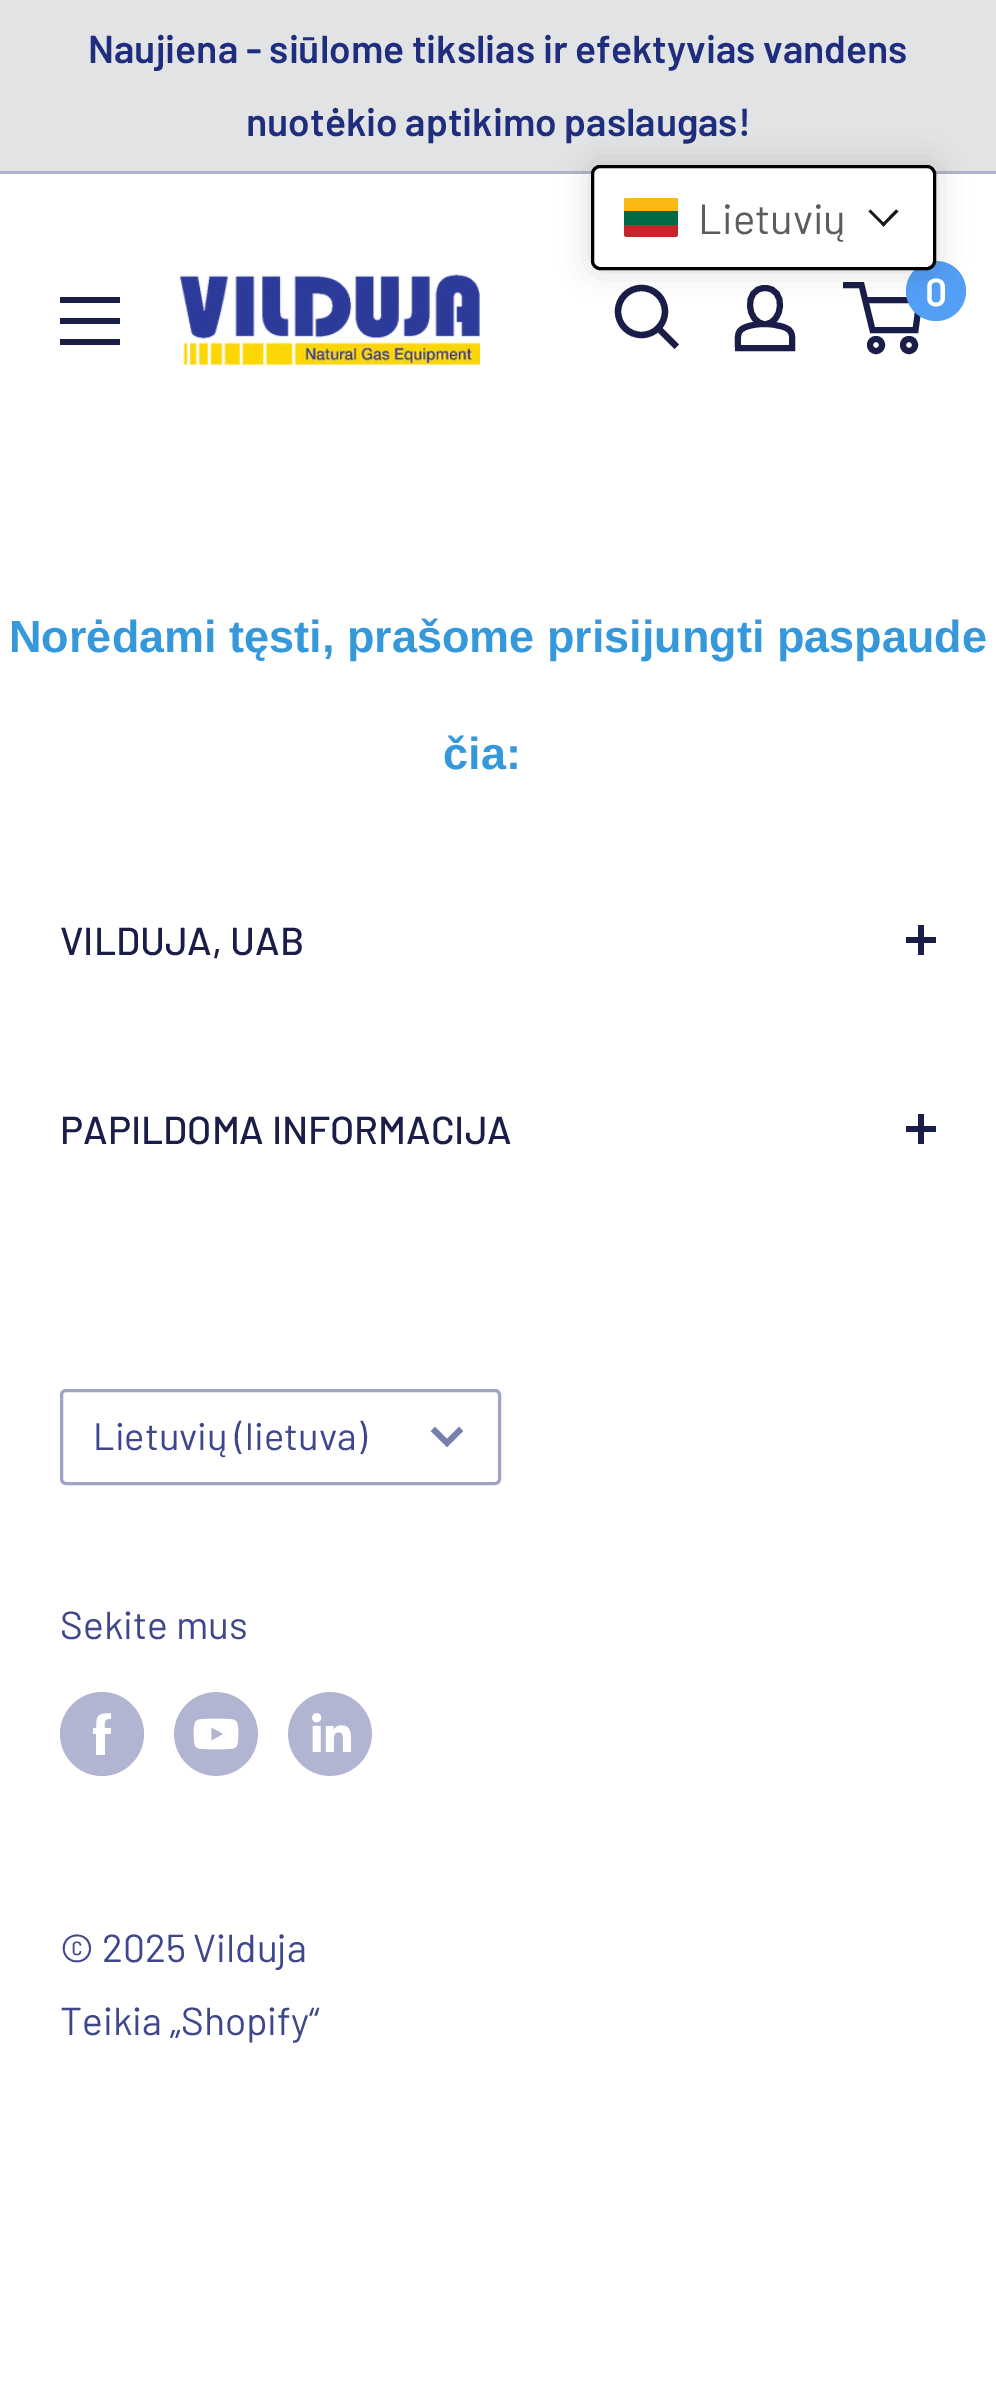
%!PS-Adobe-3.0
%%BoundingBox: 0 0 996 2389
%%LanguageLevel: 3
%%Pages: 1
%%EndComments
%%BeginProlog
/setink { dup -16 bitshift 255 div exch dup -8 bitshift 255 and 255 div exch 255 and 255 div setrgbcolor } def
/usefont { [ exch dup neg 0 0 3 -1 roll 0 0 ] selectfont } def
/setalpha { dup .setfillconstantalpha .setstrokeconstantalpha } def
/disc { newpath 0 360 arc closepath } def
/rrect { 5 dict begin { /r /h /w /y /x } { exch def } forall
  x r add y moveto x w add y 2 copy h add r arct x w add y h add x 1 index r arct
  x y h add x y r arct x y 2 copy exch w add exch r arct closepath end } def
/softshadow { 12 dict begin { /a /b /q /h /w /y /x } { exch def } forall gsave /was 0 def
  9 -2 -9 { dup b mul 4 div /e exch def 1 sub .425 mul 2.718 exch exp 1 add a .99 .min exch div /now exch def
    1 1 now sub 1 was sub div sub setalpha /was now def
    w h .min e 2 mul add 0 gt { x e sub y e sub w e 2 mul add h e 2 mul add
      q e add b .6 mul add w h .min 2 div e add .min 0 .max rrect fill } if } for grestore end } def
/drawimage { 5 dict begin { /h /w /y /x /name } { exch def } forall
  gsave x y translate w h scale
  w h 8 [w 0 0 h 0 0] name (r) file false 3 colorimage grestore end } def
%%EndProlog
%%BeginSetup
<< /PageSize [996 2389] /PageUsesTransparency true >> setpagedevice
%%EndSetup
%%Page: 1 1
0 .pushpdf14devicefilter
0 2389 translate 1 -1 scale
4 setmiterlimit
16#FFFFFF setink
0 0 996 2389 rectfill
16#E1E3E4 setink
0 0 996 171 rectfill
16#B0B4CA setink
0 171 996 3 rectfill
/Barlow-SemiBold 39 usefont
16#1E2D7D setink
88 63 moveto (Naujiena - siūlome tikslias ir efektyvias vandens) show
246 136 moveto (nuotėkio aptikimo paslaugas!) show
16#191D48 setink
6.3 setlinewidth
2 setlinecap
674.5 344.5 moveto 659 329 lineto stroke
0 setlinecap
641.5 311.5 23.5 disc stroke
6 setlinewidth
765 324 moveto 770.5 324 776.5 325 782 326.5 curveto 794.5 330 792 336.5 792 348 curveto 738 348 lineto 738 336 735.5 329.5 749 326 curveto 754.5 324.5 759.5 324 765 324 curveto closepath 765 324 moveto 747 324 743 288 765 288 curveto 787 288 783 324 765 324 curveto closepath stroke
865 300 moveto 919.5 300 lineto 915.5 330 lineto 872.5 330 lineto 861.5 285 lineto 843 285 lineto stroke
16#549FF6 setink
936 291 30 disc fill
16#000000 setink
591 165 345 105 9 15 0.15 softshadow
16#FFFFFF setink
592.5 166.5 342 102 7.5 rrect gsave fill grestore
16#000000 setink
3 setlinewidth
stroke
16#006A44 setink
624 198 54 39 3 rrect fill
16#C1272D setink
624 225 moveto 678 225 lineto 678 234 lineto 678 235.5 676.5 237 675 237 curveto 627 237 lineto 625.5 237 624 235.5 624 234 curveto closepath fill
16#FDB913 setink
627 198 moveto 675 198 lineto 676.5 198 678 199.5 678 201 curveto 678 211 lineto 624 211 lineto 624 201 lineto 624 199.5 625.5 198 627 198 curveto closepath fill
/Barlow-Regular 42 usefont
16#5C5C5C setink
698 234 moveto (Lietuvių) show
16#1A1A1A setink
896 209.5 moveto 898.5 211.5 lineto 883.5 226.5 lineto 881.5 224.5 lineto closepath fill
870.5 209.5 moveto 885.5 224.5 lineto 883.5 226.5 lineto 868.5 211.5 lineto closepath fill
(img1.raw) 180 274 300 91 drawimage
16#191D48 setink
6 setlinewidth
876 345 6 disc stroke
909 345 6 disc stroke
/Barlow-SemiBold 39 usefont
16#FFFFFF setink
925 306 moveto (0) show
16#191D48 setink
60 339 moveto 120 339 lineto 120 345 lineto 60 345 lineto closepath 60 297 moveto 120 297 lineto 120 303 lineto 60 303 lineto closepath 60 318 moveto 120 318 lineto 120 324 lineto 60 324 lineto closepath eofill
/LiberationSans-Bold 45 usefont
16#3598DB setink
9 652 moveto (Norėdami tęsti, prašome prisijungti paspaude) show
443 769 moveto (čia:) show
/Barlow-Medium 39 usefont
16#191D48 setink
60 955 moveto (VILDUJA, UAB) show
918 925 6 30 rectfill
906 937 30 6 rectfill
60 1144 moveto (PAPILDOMA INFORMACIJA) show
918 1114 6 30 rectfill
906 1126 30 6 rectfill
16#9FA3C6 setink
3 setlinewidth
61.5 1390.5 438 93 4.5 rrect stroke
/Barlow-Regular 38.25 usefont
16#3E468C setink
93 1450 moveto (Lietuvių \(lietuva\)) show
16#787EAF setink
6 setlinewidth
2 setlinecap
459 1431 moveto 447 1443 lineto 435 1431 lineto stroke
/Barlow-Regular 39 usefont
16#3E468C setink
60 1639 moveto (Sekite mus) show
16#B2B5D1 setink
102 1776 moveto 79 1776 60 1757 60 1734 curveto 60 1711 79 1692 102 1692 curveto 125 1692 144 1711 144 1734 curveto 144 1757 125 1776 102 1776 curveto closepath 111 1728 moveto 105 1728 lineto 105 1722 104 1719 111 1719 curveto 111 1713 lineto 97 1713 96 1715 96 1728 curveto 93 1728 lineto 93 1734 lineto 96 1734 lineto 96 1755 lineto 105 1755 lineto 105 1734 lineto 111 1734 lineto closepath eofill
(img2.raw) 174 1692 84 84 drawimage
(img3.raw) 288 1692 84 84 drawimage
16#3E468C setink
60 1962 moveto (© 2025 Vilduja) show
60 2035 moveto (Teikia „Shopify“) show
.poppdf14devicefilter showpage
%%EOF
